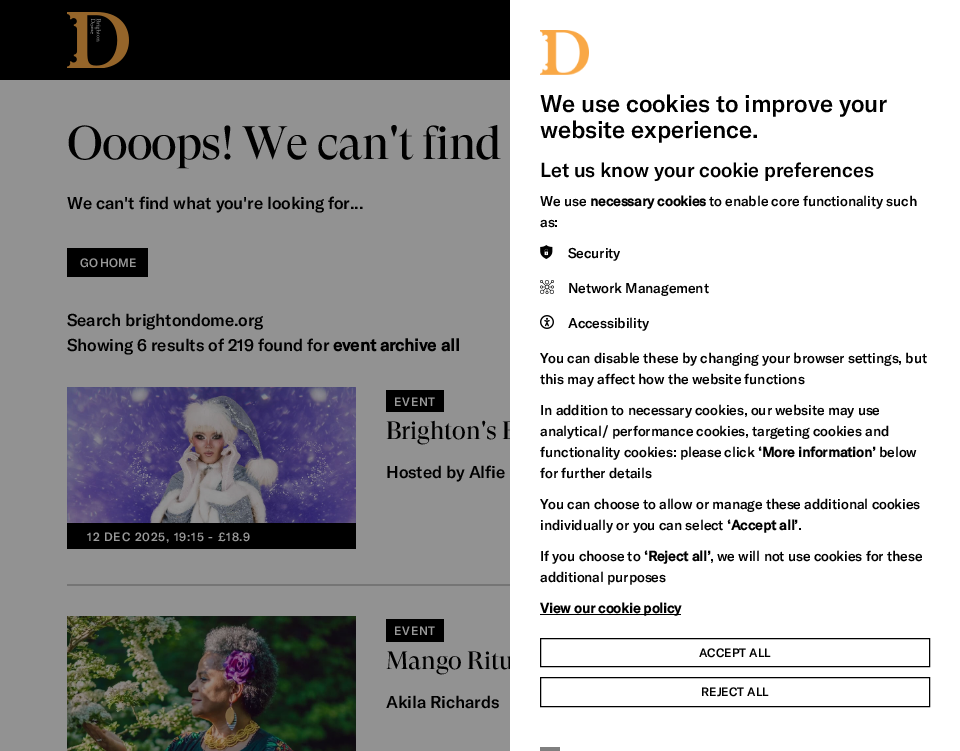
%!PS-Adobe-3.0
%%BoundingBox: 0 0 960 751
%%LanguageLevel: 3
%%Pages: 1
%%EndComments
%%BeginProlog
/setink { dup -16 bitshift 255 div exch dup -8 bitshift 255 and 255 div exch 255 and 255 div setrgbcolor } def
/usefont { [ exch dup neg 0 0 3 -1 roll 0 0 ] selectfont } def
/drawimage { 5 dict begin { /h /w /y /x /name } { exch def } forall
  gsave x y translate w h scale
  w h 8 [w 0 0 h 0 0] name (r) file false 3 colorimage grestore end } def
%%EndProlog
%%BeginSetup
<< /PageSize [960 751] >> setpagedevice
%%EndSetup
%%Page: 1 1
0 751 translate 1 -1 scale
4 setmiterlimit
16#929292 setink
0 0 960 751 rectfill
16#000000 setink
0 0 510 80 rectfill
(img1.raw) 67 12 62 56 drawimage
/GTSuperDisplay-Regular 46.75 usefont
67 159 moveto -0.9 0 (Oooops! We can't find) ashow
/GTAmerica-Medium 17 usefont
67 209 moveto -0.17 0 (We can't find what you're looking for...) ashow
67 248 81 29 rectfill
/GTAmerica-Medium 12 usefont
16#999999 setink
80 267 moveto -0.17 0 (GO HOME) ashow
/GTAmerica-Medium 17 usefont
16#000000 setink
67 326 moveto -0.17 0 (Search brightondome.org) ashow
67 351 moveto -0.17 0 (Showing 6 results of 219 found for) ashow
/GTAmerica-Bold 17 usefont
333 351 moveto -0.17 0 (event archive all) ashow
16#757575 setink
67 584 443 2 rectfill
16#000000 setink
386 390 58 22 rectfill
/GTAmerica-Medium 12 usefont
16#999999 setink
394 406 moveto 0.75 0 (EVENT) ashow
/GTSuperDisplay-Regular 25 usefont
16#000000 setink
386 439 moveto -0.17 0 (Brighton's B) ashow
/GTAmerica-Medium 17 usefont
386 478 moveto -0.17 0 (Hosted by Alfie) ashow
(img2.raw) 67 387 289 136 drawimage
67 523 289 26 rectfill
/GTAmerica-Medium 12 usefont
16#999999 setink
87 541 moveto 0.75 0 (12 DEC 2025, 19:15 - £18.9) ashow
(img3.raw) 67 616 289 135 drawimage
16#000000 setink
386 619 58 23 rectfill
16#999999 setink
394 635 moveto 0.75 0 (EVENT) ashow
/GTSuperDisplay-Regular 25 usefont
16#000000 setink
386 669 moveto -0.17 0 (Mango Ritu) ashow
/GTAmerica-Medium 17 usefont
386 708 moveto -0.17 0 (Akila Richards) ashow
16#FFFFFF setink
510 0 450 751 rectfill
(img4.raw) 540 30 49 45 drawimage
/GTAmerica-Medium 24 usefont
16#000000 setink
540 112 moveto -0.17 0 (We use cookies to improve your) ashow
540 138 moveto -0.17 0 (website experience.) ashow
/GTAmerica-Medium 20 usefont
540 177 moveto -0.17 0 (Let us know your cookie preferences) ashow
/GTAmerica-Medium 14 usefont
540 206 moveto -0.17 0 (We use) ashow
/GTAmerica-Bold 14 usefont
590 206 moveto -0.17 0 (necessary cookies) ashow
/GTAmerica-Medium 14 usefont
709 206 moveto -0.17 0 (to enable core functionality such) ashow
540 227 moveto -0.17 0 (as:) ashow
(img5.raw) 540 245 13 14 drawimage
568 258 moveto -0.17 0 (Security) ashow
(img6.raw) 540 280 14 14 drawimage
568 293 moveto -0.17 0 (Network Management) ashow
(img7.raw) 540 315 14 14 drawimage
568 328 moveto -0.17 0 (Accessibility) ashow
540 363 moveto -0.17 0 (You can disable these by changing your browser settings, but) ashow
540 384 moveto -0.17 0 (this may affect how the website functions) ashow
540 415 moveto -0.17 0 (In addition to necessary cookies, our website may use) ashow
540 436 moveto -0.17 0 (analytical/ performance cookies, targeting cookies and) ashow
540 457 moveto -0.17 0 (functionality cookies: please click) ashow
/GTAmerica-Bold 14 usefont
758 457 moveto -0.17 0 (‘More information’) ashow
/GTAmerica-Medium 14 usefont
879 457 moveto -0.17 0 (below) ashow
540 478 moveto -0.17 0 (for further details) ashow
540 509 moveto -0.17 0 (You can choose to allow or manage these additional cookies) ashow
540 530 moveto -0.17 0 (individually or you can select) ashow
/GTAmerica-Bold 14 usefont
727 530 moveto -0.17 0 (‘Accept all’) ashow
/GTAmerica-Medium 14 usefont
798 530 moveto -0.17 0 (.) ashow
540 561 moveto -0.17 0 (If you choose to) ashow
/GTAmerica-Bold 14 usefont
644 561 moveto -0.17 0 (‘Reject all’) ashow
/GTAmerica-Medium 14 usefont
710 561 moveto -0.17 0 (, we will not use cookies for these) ashow
540 582 moveto -0.17 0 (additional purposes) ashow
540 614 141 1 rectfill
/GTAmerica-Bold 14 usefont
540 613 moveto -0.17 0 (View our cookie policy) ashow
540.5 638.5 389 28 rectstroke
/GTAmerica-Medium 12 usefont
699 657 moveto (ACCEPT ALL) show
540.5 677.5 389 29 rectstroke
701 696 moveto (REJECT ALL) show
16#808080 setink
540 747 20 4 rectfill
showpage
%%EOF
